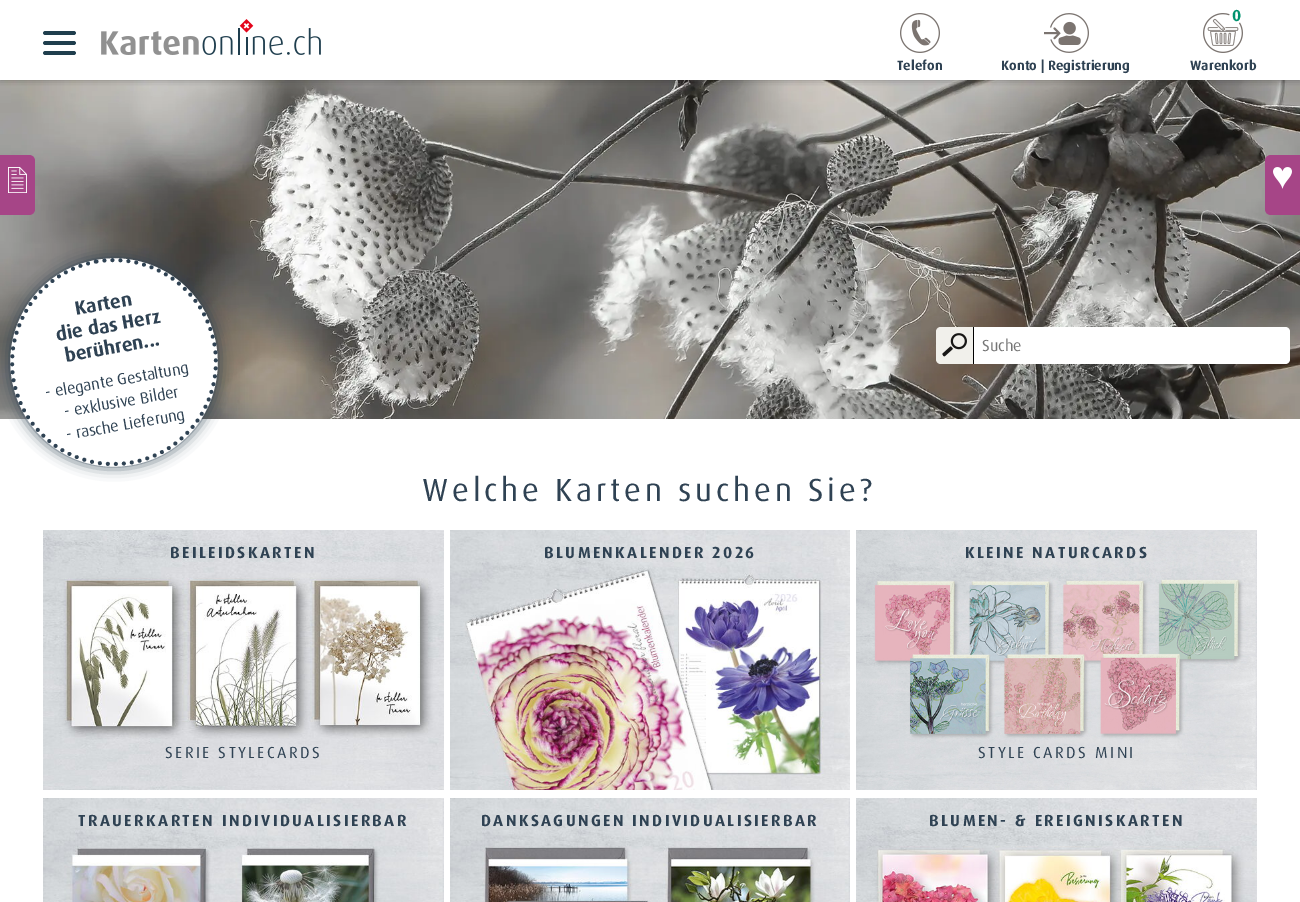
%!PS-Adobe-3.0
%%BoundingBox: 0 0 1300 902
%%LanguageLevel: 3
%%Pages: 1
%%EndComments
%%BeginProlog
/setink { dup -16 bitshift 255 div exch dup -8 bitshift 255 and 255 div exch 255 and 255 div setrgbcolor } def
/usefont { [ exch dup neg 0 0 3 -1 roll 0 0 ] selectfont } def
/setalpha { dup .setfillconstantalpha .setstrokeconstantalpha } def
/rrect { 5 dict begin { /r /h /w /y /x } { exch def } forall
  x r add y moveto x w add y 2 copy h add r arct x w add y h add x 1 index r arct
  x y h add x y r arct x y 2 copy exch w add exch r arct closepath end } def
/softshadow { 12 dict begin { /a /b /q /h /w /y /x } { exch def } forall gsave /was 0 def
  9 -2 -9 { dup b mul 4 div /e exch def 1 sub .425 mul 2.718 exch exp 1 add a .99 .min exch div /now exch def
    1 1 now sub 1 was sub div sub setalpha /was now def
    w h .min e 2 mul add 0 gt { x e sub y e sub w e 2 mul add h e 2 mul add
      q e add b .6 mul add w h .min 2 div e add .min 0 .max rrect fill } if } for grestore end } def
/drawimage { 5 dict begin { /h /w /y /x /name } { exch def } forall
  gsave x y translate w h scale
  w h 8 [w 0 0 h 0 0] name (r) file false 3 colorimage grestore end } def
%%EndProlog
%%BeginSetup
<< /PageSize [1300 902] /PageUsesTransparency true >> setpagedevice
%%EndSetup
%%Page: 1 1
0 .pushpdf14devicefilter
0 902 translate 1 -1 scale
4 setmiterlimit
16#FFFFFF setink
0 0 1300 902 rectfill
(img5.raw) 0 80 1300 339 drawimage
gsave
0 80 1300 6 rectclip
16#000000 setink
0 0 1300 80 0 4 0.3 softshadow
grestore
16#1F3E4D setink
3.7 setlinewidth
1 setlinecap
45 33 moveto 74 33 lineto 45 43 moveto 74 43 lineto 45 53 moveto 74 53 lineto stroke
(img1.raw) 101 19 220 36 drawimage
(img2.raw) 900 13 40 40 drawimage
/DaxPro-Bold 13.5 usefont
16#2F4253 setink
897 70 moveto (Telefon) show
(img3.raw) 1044 13 45 40 drawimage
1001 70 moveto (Konto | Registrierung) show
(img4.raw) 1203 13 40 40 drawimage
/DaxPro-Bold 16 usefont
16#00926E setink
1232 21 moveto (0) show
/DaxPro-Bold 13.5 usefont
16#2F4253 setink
1190 70 moveto (Warenkorb) show
16#A64587 setink
0 155 moveto 29 155 lineto 32.5 155 35 157.5 35 161 curveto 35 209 lineto 35 212.5 32.5 215 29 215 curveto 0 215 lineto closepath fill
(img6.raw) 8 167 19 26 drawimage
1271 155 moveto 1300 155 lineto 1300 215 lineto 1271 215 lineto 1267.5 215 1265 212.5 1265 209 curveto 1265 161 lineto 1265 157.5 1267.5 155 1271 155 curveto closepath fill
(img7.raw) 1273 167 19 22 drawimage
16#2F4253 setink
10 258 208 208 104 7 1 softshadow
16#FFFFFF setink
96 260 moveto 153 250 206 287 216 344 curveto 226 401 189 455 132 465 curveto 75 475 22 437 12 380 curveto 2 324 39 270 96 260 curveto closepath fill
16#2F4253 setink
4 setlinewidth
[0 8] 0 setdash
96.5 261.5 moveto 152 252 204.5 289 214.5 344.5 curveto 224 400 187 453 131.5 462.5 curveto 76 472.5 23.5 435.5 13.5 380 curveto 4 324.5 41 271.5 96.5 261.5 curveto closepath stroke
/DaxPro-Bold 19.25 usefont
gsave 76 315 translate -10 rotate 0 0 moveto (Karten) show grestore
gsave 57 341 translate -10 rotate 0 0 moveto (die das Herz) show grestore
gsave 66 362 translate -10 rotate 0 0 moveto (berühren...) show grestore
/DaxPro-Regular 16 usefont
gsave 46 398 translate -10 rotate 0 0 moveto (- elegante Gestaltung) show grestore
gsave 65 417 translate -10 rotate 0 0 moveto (- exklusive Bilder) show grestore
gsave 67 440 translate -10 rotate 0 0 moveto (- rasche Lieferung) show grestore
16#F1F0EB setink
941 327 moveto 973 327 lineto 973 364 lineto 941 364 lineto 938 364 936 362 936 359 curveto 936 332 lineto 936 329 938 327 941 327 curveto closepath fill
(img8.raw) 942 333 25 24 drawimage
16#FFFFFF setink
973 327 moveto 1285 327 lineto 1288 327 1290 329 1290 332 curveto 1290 359 lineto 1290 362 1288 364 1285 364 curveto 973 364 lineto closepath fill
16#000000 setink
973 327 1 37 rectfill
16#757575 setink
982 351 moveto (Suche) show
/DaxPro-Regular 32 usefont
16#2F4253 setink
422 501 moveto 3.8 0 (Welche Karten suchen Sie?) ashow
(img9.raw) 43 530 401 260 drawimage
/DaxPro-Bold 16 usefont
170 558 moveto 2.4 0 (BEILEIDSKARTEN) ashow
/DaxPro-Regular 16 usefont
165 758 moveto 2.4 0 (SERIE STYLECARDS) ashow
(img10.raw) 450 530 400 260 drawimage
/DaxPro-Bold 16 usefont
544 558 moveto 2.4 0 (BLUMENKALENDER 2026) ashow
(img11.raw) 856 530 401 260 drawimage
965 558 moveto 2.4 0 (KLEINE NATURCARDS) ashow
/DaxPro-Regular 16 usefont
978 758 moveto 2.4 0 (STYLE CARDS MINI) ashow
(img12.raw) 43 798 401 104 drawimage
/DaxPro-Bold 16 usefont
78 826 moveto 2.4 0 (TRAUERKARTEN INDIVIDUALISIERBAR) ashow
(img13.raw) 450 798 400 104 drawimage
481 826 moveto 2.4 0 (DANKSAGUNGEN INDIVIDUALISIERBAR) ashow
(img14.raw) 856 798 401 104 drawimage
929 826 moveto 2.4 0 (BLUMEN- & EREIGNISKARTEN) ashow
.poppdf14devicefilter showpage
%%EOF
